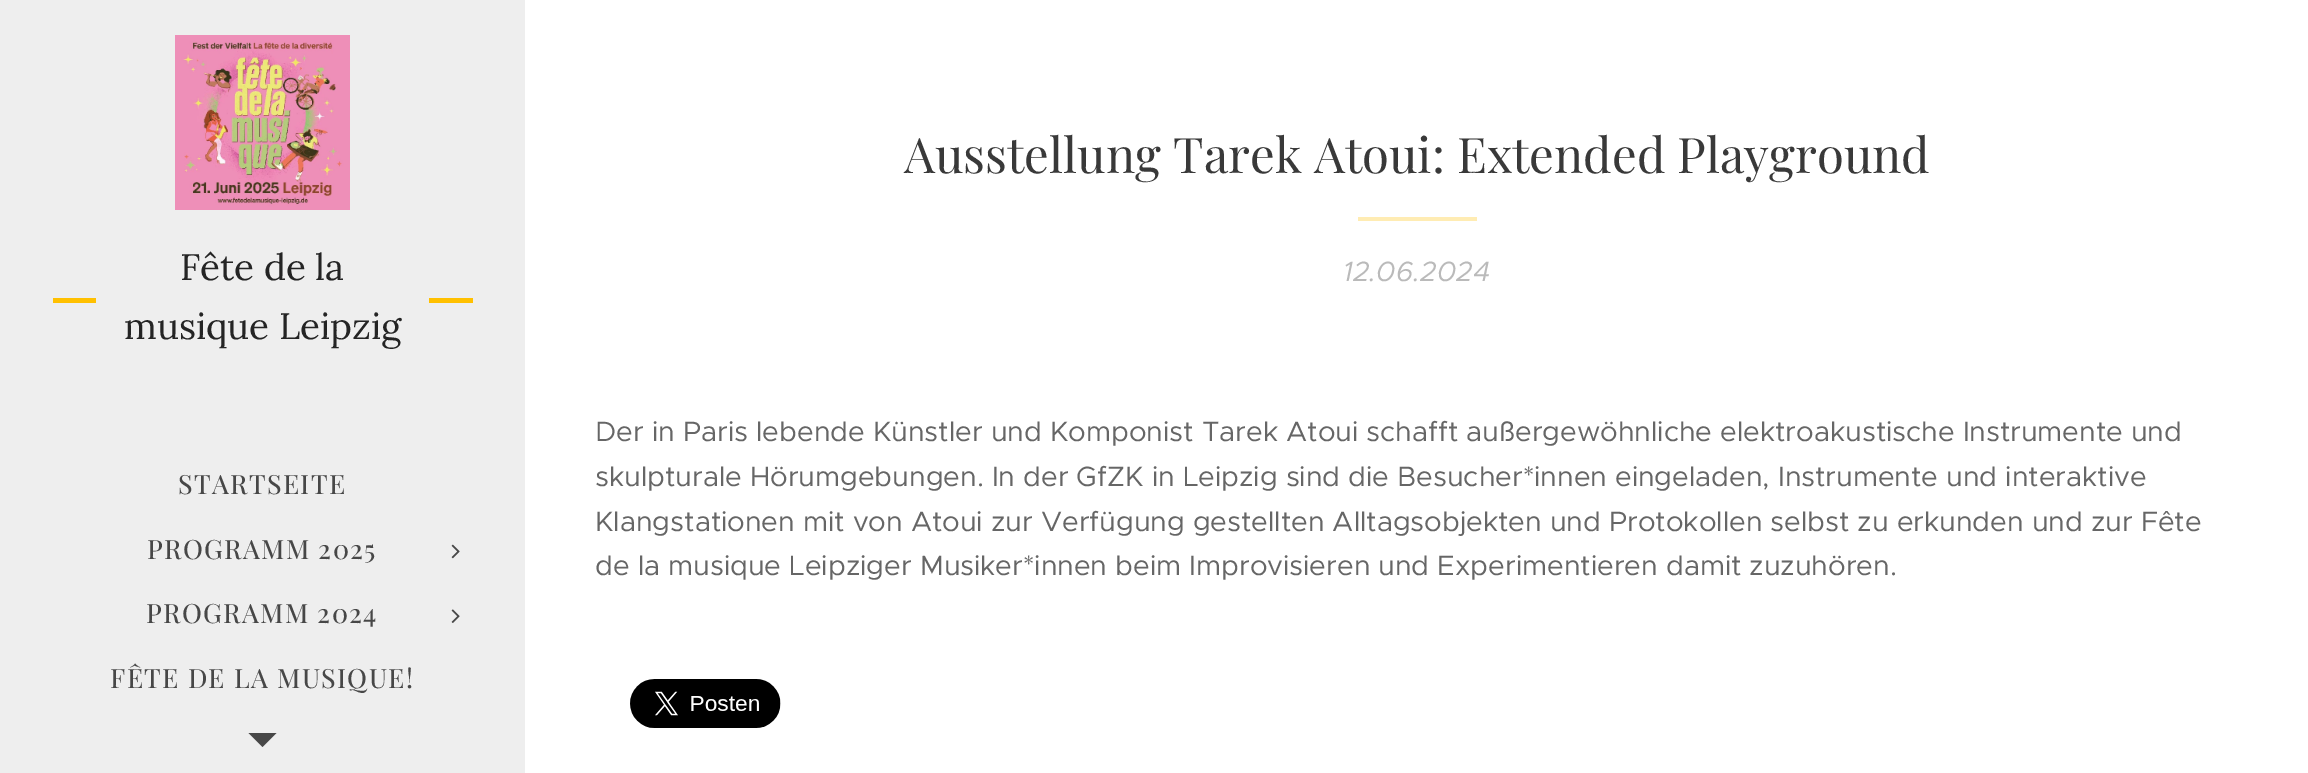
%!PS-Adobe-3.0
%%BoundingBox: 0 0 2308 773
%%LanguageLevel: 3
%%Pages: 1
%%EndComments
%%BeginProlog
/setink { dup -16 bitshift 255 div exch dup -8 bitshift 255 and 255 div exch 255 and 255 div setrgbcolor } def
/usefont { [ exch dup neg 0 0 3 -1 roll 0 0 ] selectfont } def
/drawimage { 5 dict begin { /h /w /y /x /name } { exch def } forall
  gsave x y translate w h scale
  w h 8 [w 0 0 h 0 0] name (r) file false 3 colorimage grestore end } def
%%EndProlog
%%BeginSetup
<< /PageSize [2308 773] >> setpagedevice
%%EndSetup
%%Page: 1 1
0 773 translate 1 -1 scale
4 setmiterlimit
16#FFFFFF setink
0 0 2308 773 rectfill
16#EEEEEE setink
0 0 525 773 rectfill
(img1.raw) 175 35 175 175 drawimage
16#FFC000 setink
53 298 43 5 rectfill
/Lora-Regular 36.75 usefont
16#242424 setink
180 280 moveto (Fête de la) show
124 339 moveto (musique Leipzig) show
16#FFC000 setink
429 298 44 5 rectfill
/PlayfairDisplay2-Regular 26.6 usefont
16#474747 setink
178 494 moveto 1.3 0 (STARTSEITE) ashow
147 559 moveto 1.3 0 (PROGRAMM 2025) ashow
(img2.raw) 451 544 9 15 drawimage
146 623 moveto 1.3 0 (PROGRAMM 2024) ashow
(img3.raw) 451 609 9 14 drawimage
110 688 moveto 1.3 0 (FÊTE DE LA MUSIQUE!) ashow
248.5 733 moveto 276.5 733 lineto 262.5 747 lineto closepath fill
/PlayfairDisplay-Regular 49 usefont
16#393939 setink
904 173 moveto (Ausstellung Tarek Atoui: Extended Playground) show
16#FFECB3 setink
1358 217 119 4 rectfill
/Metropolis-Italic 28 usefont
16#BABABA setink
1343 281 moveto (12.06.2024) show
/Metropolis-Regular 28 usefont
16#666666 setink
[
    [(Der in Paris lebende Künstler und Komponist Tarek Atoui schafft außergewöhnliche elektroakustische Instrumente und) 595 441]
    [(skulpturale Hörumgebungen. In der GfZK in Leipzig sind die Besucher*innen eingeladen, Instrumente und interaktive) 595 486]
    [(Klangstationen mit von Atoui zur Verfügung gestellten Alltagsobjekten und Protokollen selbst zu erkunden und zur Fête) 595 531]
    [(de la musique Leipziger Musiker*innen beim Improvisieren und Experimentieren damit zuzuhören.) 595 575]
] { aload pop moveto show } forall
(img4.raw) 630 679 151 49 drawimage
showpage
%%EOF
